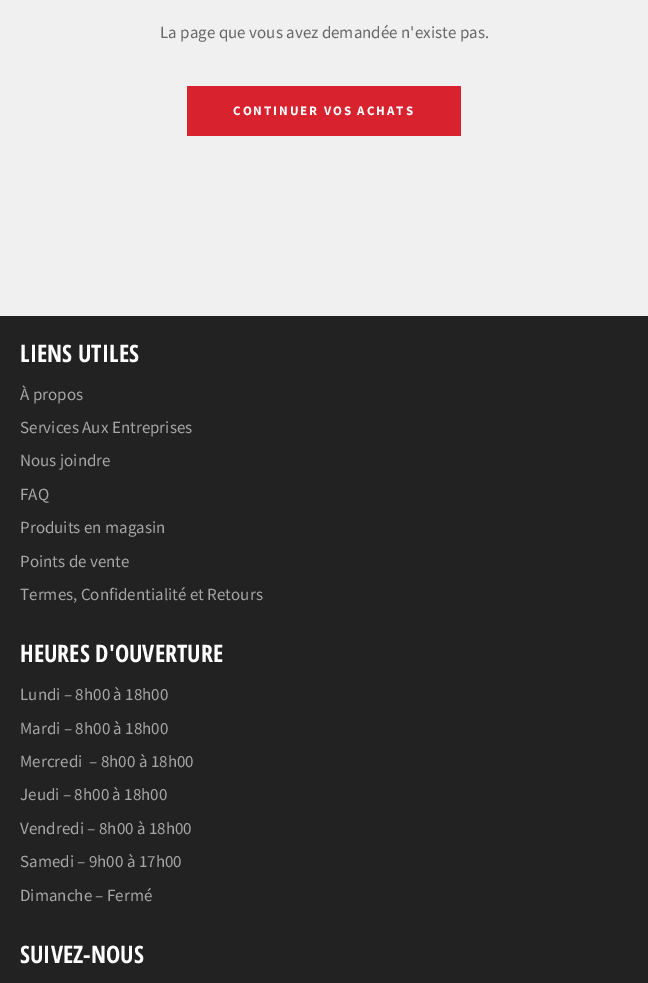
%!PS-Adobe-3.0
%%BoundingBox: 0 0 648 983
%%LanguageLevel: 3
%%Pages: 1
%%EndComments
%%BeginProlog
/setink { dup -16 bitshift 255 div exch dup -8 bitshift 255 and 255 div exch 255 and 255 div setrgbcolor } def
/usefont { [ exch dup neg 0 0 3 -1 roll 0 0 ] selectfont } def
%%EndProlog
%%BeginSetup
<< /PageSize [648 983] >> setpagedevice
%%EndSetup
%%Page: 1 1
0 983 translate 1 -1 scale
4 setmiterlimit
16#F0F0F0 setink
0 0 648 983 rectfill
/SourceSansPro-Regular 17 usefont
16#666666 setink
160 38 moveto (La page que vous avez demandée n'existe pas.) show
16#D8232F setink
187 86 274 50 rectfill
/SourceSansPro-Bold 13 usefont
16#FFFFFF setink
233 115 moveto 1.95 0 (CONTINUER VOS ACHATS) ashow
16#222222 setink
0 316 648 667 rectfill
/OpenSansCondensed-Bold 24 usefont
16#FFFFFF setink
20 362 moveto (LIENS UTILES) show
/SourceSansPro-Regular 17 usefont
16#A7A7A7 setink
[
    [(À propos) 20 400]
    [(Services Aux Entreprises) 20 433]
    [(Nous joindre) 20 466]
    [(FAQ) 20 500]
    [(Produits en magasin) 20 533]
    [(Points de vente) 20 567]
    [(Termes, Confidentialité et Retours) 20 600]
] { aload pop moveto show } forall
/OpenSansCondensed-Bold 24 usefont
16#FFFFFF setink
20 662 moveto (HEURES D'OUVERTURE) show
/SourceSansPro-Regular 17 usefont
16#A7A7A7 setink
[
    [(Lundi – 8h00 à 18h00) 20 700]
    [(Mardi – 8h00 à 18h00) 20 734]
    [(Mercredi  – 8h00 à 18h00) 20 767]
    [(Jeudi – 8h00 à 18h00) 20 800]
    [(Vendredi – 8h00 à 18h00) 20 834]
    [(Samedi – 9h00 à 17h00) 20 867]
    [(Dimanche – Fermé) 20 901]
] { aload pop moveto show } forall
/OpenSansCondensed-Bold 24 usefont
16#FFFFFF setink
20 963 moveto (SUIVEZ-NOUS) show
showpage
%%EOF
